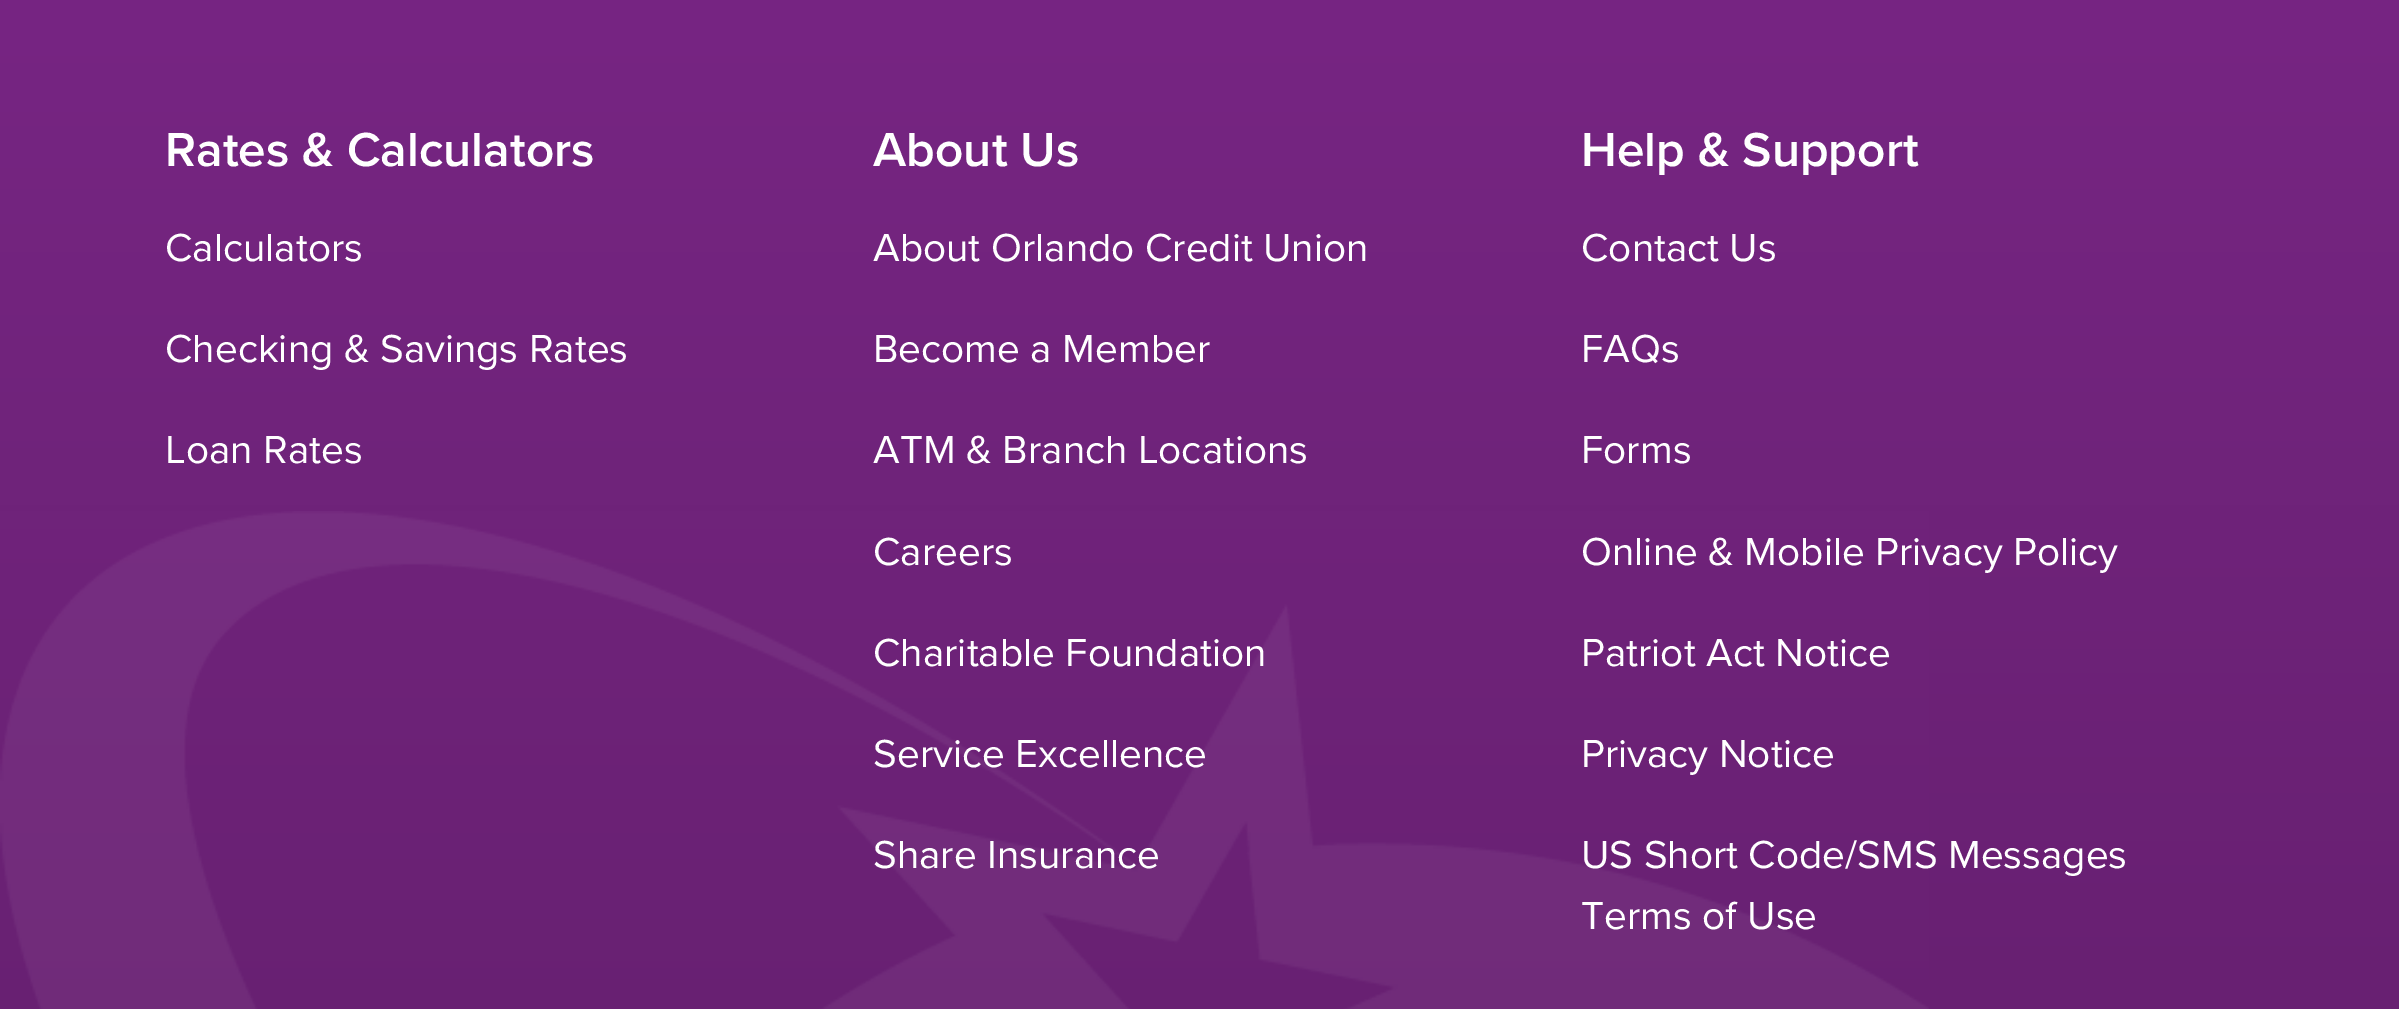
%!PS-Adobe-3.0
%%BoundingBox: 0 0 2399 1009
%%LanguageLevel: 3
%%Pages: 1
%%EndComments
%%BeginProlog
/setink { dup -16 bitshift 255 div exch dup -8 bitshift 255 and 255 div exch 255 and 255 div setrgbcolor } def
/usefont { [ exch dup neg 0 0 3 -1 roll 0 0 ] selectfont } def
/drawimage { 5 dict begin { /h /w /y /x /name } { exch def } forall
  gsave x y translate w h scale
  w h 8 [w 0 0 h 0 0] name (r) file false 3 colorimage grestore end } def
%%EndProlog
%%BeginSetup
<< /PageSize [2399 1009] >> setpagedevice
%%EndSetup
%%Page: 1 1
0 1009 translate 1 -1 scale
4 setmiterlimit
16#FFFFFF setink
0 0 2399 1009 rectfill
gsave 0 0 moveto 2399 0 lineto 2399 1009 lineto 0 1009 lineto closepath clip newpath
<< /ShadingType 2 /ColorSpace /DeviceRGB /Coords [1200 -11 1200 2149] /Extend [true true] /Function << /FunctionType 2 /Domain [0 1] /C0 [0.467 0.145 0.514] /C1 [0.341 0.106 0.373] /N 1 >> >> shfill grestore
/ProximaNova-SemiBold 49.5 usefont
165 166 moveto (Rates & Calculators) show
/ProximaNova-Regular 40.5 usefont
[
    [(Calculators) 165 261]
    [(Checking & Savings Rates) 165 362]
    [(Loan Rates) 165 463]
] { aload pop moveto show } forall
/ProximaNova-SemiBold 49.5 usefont
873 166 moveto (About Us) show
/ProximaNova-Regular 40.5 usefont
[
    [(About Orlando Credit Union) 873 261]
    [(Become a Member) 873 362]
    [(ATM & Branch Locations) 873 463]
] { aload pop moveto show } forall
(img1.raw) 0 511 1929 498 drawimage
[
    [(Careers) 873 565]
    [(Charitable Foundation) 873 666]
    [(Service Excellence) 873 767]
    [(Share Insurance) 873 868]
] { aload pop moveto show } forall
/ProximaNova-SemiBold 49.5 usefont
1581 166 moveto (Help & Support) show
/ProximaNova-Regular 40.5 usefont
[
    [(Contact Us) 1581 261]
    [(FAQs) 1581 362]
    [(Forms) 1581 463]
    [(Online & Mobile Privacy Policy) 1581 565]
    [(Patriot Act Notice) 1581 666]
    [(Privacy Notice) 1581 767]
    [(US Short Code/SMS Messages) 1581 868]
    [(Terms of Use) 1581 929]
] { aload pop moveto show } forall
showpage
%%EOF
